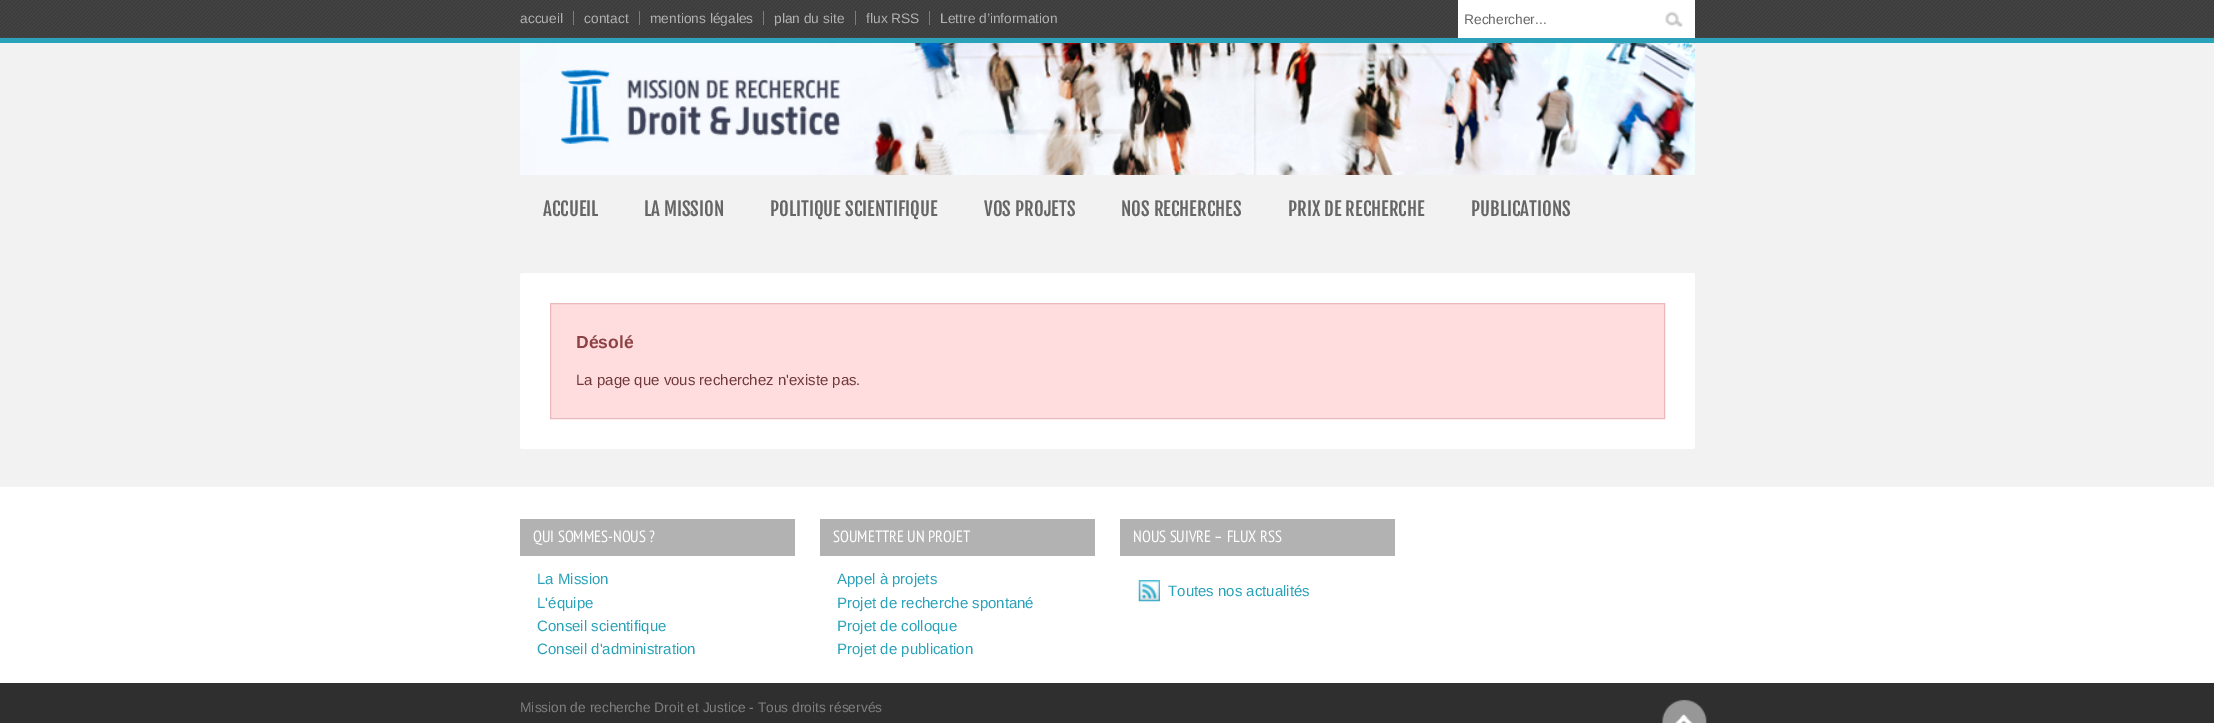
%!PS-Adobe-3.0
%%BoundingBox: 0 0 2214 723
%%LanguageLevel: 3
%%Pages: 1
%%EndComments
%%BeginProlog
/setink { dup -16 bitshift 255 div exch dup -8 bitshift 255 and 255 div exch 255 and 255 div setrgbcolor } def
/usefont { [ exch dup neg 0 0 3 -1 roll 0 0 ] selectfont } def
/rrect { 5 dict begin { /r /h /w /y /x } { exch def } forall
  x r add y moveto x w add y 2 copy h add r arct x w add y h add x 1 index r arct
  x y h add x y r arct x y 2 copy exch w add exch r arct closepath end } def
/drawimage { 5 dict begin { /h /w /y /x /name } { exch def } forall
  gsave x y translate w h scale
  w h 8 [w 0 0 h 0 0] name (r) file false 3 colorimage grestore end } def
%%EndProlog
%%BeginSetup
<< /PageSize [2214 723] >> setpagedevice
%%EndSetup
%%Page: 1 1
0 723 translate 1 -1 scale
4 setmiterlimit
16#F2F2F2 setink
0 0 2214 723 rectfill
16#444444 setink
0 0 2214 38 rectfill
(img1.raw) 0 0 2214 37 drawimage
16#7D7D7D setink
573 11 1 14 rectfill
/LiberationSans-Regular 13.75 usefont
16#B2B2B2 setink
520 23 moveto (accueil) show
16#7D7D7D setink
639 11 1 14 rectfill
16#B2B2B2 setink
584 23 moveto (contact) show
16#7D7D7D setink
763 11 1 14 rectfill
16#B2B2B2 setink
650 23 moveto (mentions légales) show
16#7D7D7D setink
855 11 1 14 rectfill
16#B2B2B2 setink
774 23 moveto (plan du site) show
16#7D7D7D setink
929 11 1 14 rectfill
16#B2B2B2 setink
866 23 moveto (flux RSS) show
940 23 moveto (Lettre d’information) show
16#FFFFFF setink
1458 0 237 38 rectfill
16#666666 setink
1464 24 moveto (Rechercher...) show
(img2.raw) 1665 11 18 16 drawimage
16#29A2BA setink
0 38 2214 5 rectfill
(img3.raw) 520 43 1175 132 drawimage
/FjallaOne-Regular 18.75 usefont
16#666666 setink
[
    [(ACCUEIL) 543 216]
    [(LA MISSION) 644 216]
    [(POLITIQUE SCIENTIFIQUE) 770 216]
    [(VOS PROJETS) 984 216]
    [(NOS RECHERCHES) 1121 216]
    [(PRIX DE RECHERCHE) 1288 216]
    [(PUBLICATIONS) 1471 216]
] { aload pop moveto show } forall
16#FFFFFF setink
520 273 1175 176 2.5 rrect fill
16#FFDCDD setink
550.5 303.5 moveto 1664.5 303.5 lineto 1664.5 418.5 lineto 550.5 418.5 lineto closepath gsave fill grestore
16#E9B9BB setink
stroke
/LiberationSans-Bold 17.5 usefont
16#8D4345 setink
576 348 moveto (Désolé) show
/LiberationSans-Regular 15 usefont
16#713A3C setink
576 385 moveto (La page que vous recherchez n'existe pas.) show
[
    [0 487 2214 196 16#FFFFFF]
    [0 486 2214 1 16#F5F5F5]
    [520 519 275 37 16#B2B2B2]
] { aload pop setink rectfill } forall
/PTSansNarrow-Regular 16.25 usefont
16#FFFFFF setink
533 542 moveto (QUI SOMMES-NOUS ?) show
/LiberationSans-Regular 15 usefont
16#29A2BA setink
[
    [(La Mission) 537 584]
    [(L'équipe) 537 608]
    [(Conseil scientifique) 537 631]
    [(Conseil d'administration) 537 654]
] { aload pop moveto show } forall
16#B2B2B2 setink
820 519 275 37 rectfill
/PTSansNarrow-Regular 16.25 usefont
16#FFFFFF setink
833 542 moveto (SOUMETTRE UN PROJET) show
/LiberationSans-Regular 15 usefont
16#29A2BA setink
[
    [(Appel à projets) 837 584]
    [(Projet de recherche spontané) 837 608]
    [(Projet de colloque) 837 631]
    [(Projet de publication) 837 654]
] { aload pop moveto show } forall
16#B2B2B2 setink
1120 519 275 37 rectfill
/PTSansNarrow-Regular 16.25 usefont
16#FFFFFF setink
1133 542 moveto (NOUS SUIVRE – FLUX RSS) show
(img4.raw) 1138 580 22 22 drawimage
/LiberationSans-Regular 15 usefont
16#29A2BA setink
1168 596 moveto (Toutes nos actualités) show
16#2F2F2F setink
0 683 2214 40 rectfill
/LiberationSans-Regular 13.75 usefont
16#808080 setink
520 712 moveto (Mission de recherche Droit et Justice - Tous droits réservés) show
(img5.raw) 1662 699 45 24 drawimage
showpage
%%EOF
